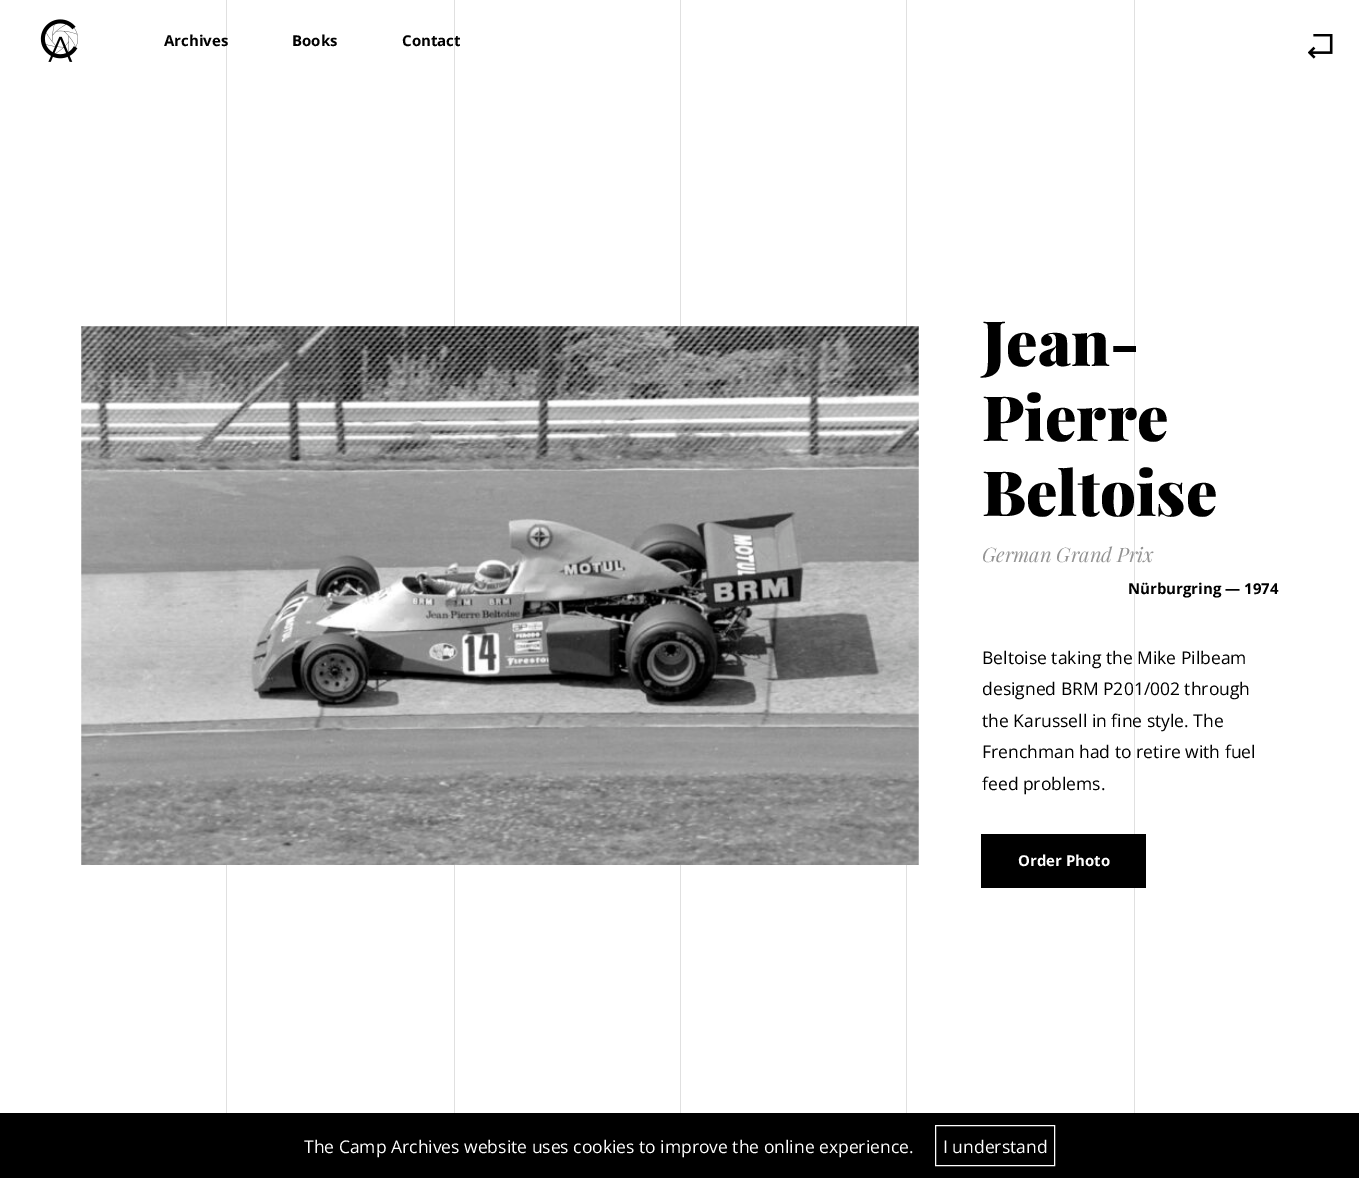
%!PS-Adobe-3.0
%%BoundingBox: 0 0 1359 1178
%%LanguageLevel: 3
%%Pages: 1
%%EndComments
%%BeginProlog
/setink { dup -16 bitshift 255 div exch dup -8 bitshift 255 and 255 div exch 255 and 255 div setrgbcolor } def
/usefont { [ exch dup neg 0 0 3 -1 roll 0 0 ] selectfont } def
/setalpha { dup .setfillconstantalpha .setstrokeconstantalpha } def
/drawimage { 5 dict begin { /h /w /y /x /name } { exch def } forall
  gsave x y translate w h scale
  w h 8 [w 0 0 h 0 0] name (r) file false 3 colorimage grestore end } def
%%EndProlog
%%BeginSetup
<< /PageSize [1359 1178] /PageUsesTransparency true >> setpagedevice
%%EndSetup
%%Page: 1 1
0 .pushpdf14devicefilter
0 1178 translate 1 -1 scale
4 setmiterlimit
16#FFFFFF setink
0 0 1359 1178 rectfill
0.12 setalpha
[
    [226 0 1 1113 16#000000]
    [454 0 1 1113 16#000000]
] { aload pop setink rectfill } forall
1 setalpha
[
    [680 0 1 1113 16#E0E0E0]
    [906 0 1 1113 16#E0E0E0]
    [1134 0 1 1113 16#E0E0E0]
] { aload pop setink rectfill } forall
(img1.raw) 40 19 38 43 drawimage
/OpenSans-Bold 15 usefont
16#000000 setink
[
    [(Archives) 164 46]
    [(Books) 292 46]
    [(Contact) 402 46]
] { aload pop moveto show } forall
(img2.raw) 1308 34 25 25 drawimage
(img3.raw) 81 326 838 539 drawimage
/PlayfairDisplay-Black 62.5 usefont
[
    [(Jean-) 982 366]
    [(Pierre) 982 441]
    [(Beltoise) 982 516]
] { aload pop moveto show } forall
/PlayfairDisplay-Italic 20 usefont
16#939393 setink
982 562 moveto (German Grand Prix) show
/OpenSans-Bold 15 usefont
16#000000 setink
1128 594 moveto (Nürburgring — 1974) show
/OpenSans-Regular 17.5 usefont
[
    [(Beltoise taking the Mike Pilbeam) 982 664]
    [(designed BRM P201/002 through) 982 695]
    [(the Karussell in fine style. The) 982 727]
    [(Frenchman had to retire with fuel) 982 758]
    [(feed problems.) 982 790]
] { aload pop moveto show } forall
981 834 165 54 rectfill
/OpenSans-Bold 15 usefont
16#FFFFFF setink
1018 866 moveto (Order Photo) show
16#000000 setink
0 1113 1359 65 rectfill
/OpenSans-Regular 17.5 usefont
16#FFFFFF setink
304 1153 moveto (The Camp Archives website uses cookies to improve the online experience.) show
935.5 1125.5 119 40 rectstroke
943 1153 moveto (I understand) show
.poppdf14devicefilter showpage
%%EOF
